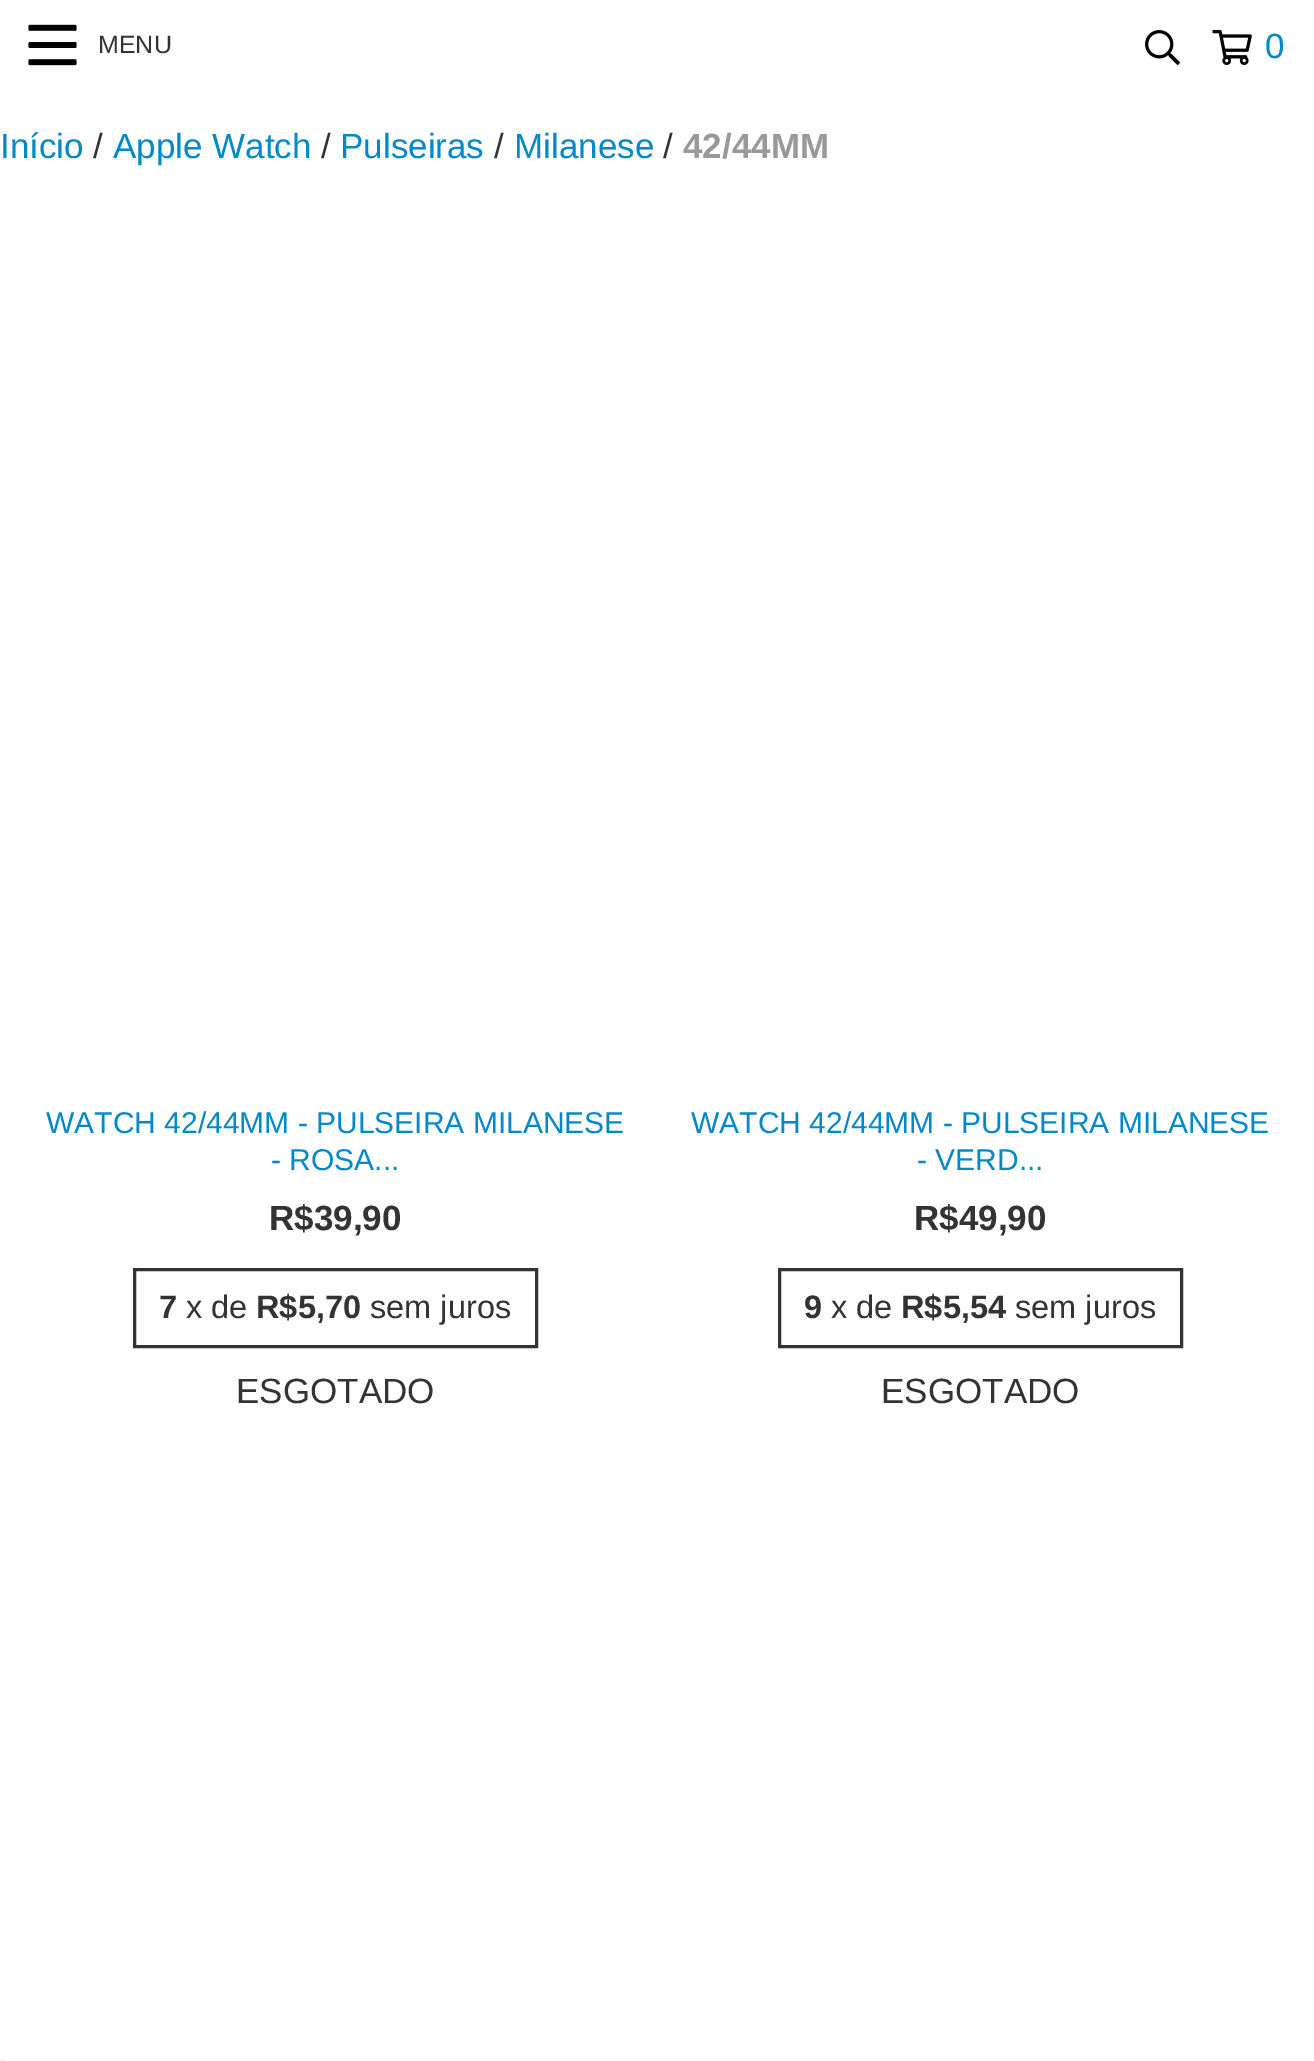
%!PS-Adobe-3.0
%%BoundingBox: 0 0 1314 2061
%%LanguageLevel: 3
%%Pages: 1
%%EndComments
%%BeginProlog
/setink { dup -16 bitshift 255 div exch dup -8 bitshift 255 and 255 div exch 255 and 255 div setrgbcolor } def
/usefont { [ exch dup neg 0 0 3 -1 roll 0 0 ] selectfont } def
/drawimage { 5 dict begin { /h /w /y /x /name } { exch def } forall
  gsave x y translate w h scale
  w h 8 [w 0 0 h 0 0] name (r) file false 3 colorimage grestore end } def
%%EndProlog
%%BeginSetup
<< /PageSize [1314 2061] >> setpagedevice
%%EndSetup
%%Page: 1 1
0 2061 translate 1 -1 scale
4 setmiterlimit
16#FFFFFF setink
0 0 1314 2061 rectfill
(img1.raw) 28 24 49 42 drawimage
/LiberationSans-Regular 25 usefont
16#333333 setink
98 53 moveto (MENU) show
(img2.raw) 1145 30 35 35 drawimage
(img3.raw) 1212 30 40 35 drawimage
/LiberationSans-Regular 35 usefont
16#0088CC setink
1265 58 moveto 2 0 (0) ashow
0 158 moveto (Início) show
16#333333 setink
93 158 moveto (/) show
16#0088CC setink
113 158 moveto (Apple Watch) show
16#333333 setink
321 158 moveto (/) show
16#0088CC setink
340 158 moveto (Pulseiras) show
16#333333 setink
494 158 moveto (/) show
16#0088CC setink
514 158 moveto (Milanese) show
16#333333 setink
663 158 moveto (/) show
/LiberationSans-Bold 35 usefont
16#999999 setink
683 158 moveto (42/44MM) show
/LiberationSans-Regular 30 usefont
16#0088CC setink
46 1133 moveto (WATCH 42/44MM - PULSEIRA MILANESE) show
271 1170 moveto (- ROSA...) show
/LiberationSans-Bold 35 usefont
16#333333 setink
269 1230 moveto (R$39,90) show
3 setlinewidth
134.5 1269.5 402 77 rectstroke
/LiberationSans-Bold 32.5 usefont
159 1318 moveto (7) show
/LiberationSans-Regular 32.5 usefont
186 1318 moveto (x de) show
/LiberationSans-Bold 32.5 usefont
256 1318 moveto (R$5,70) show
/LiberationSans-Regular 32.5 usefont
370 1318 moveto (sem juros) show
/LiberationSans-Regular 35 usefont
236 1403 moveto (ESGOTADO) show
/LiberationSans-Regular 30 usefont
16#0088CC setink
691 1133 moveto (WATCH 42/44MM - PULSEIRA MILANESE) show
917 1170 moveto (- VERD...) show
/LiberationSans-Bold 35 usefont
16#333333 setink
914 1230 moveto (R$49,90) show
779.5 1269.5 402 77 rectstroke
/LiberationSans-Bold 32.5 usefont
804 1318 moveto (9) show
/LiberationSans-Regular 32.5 usefont
831 1318 moveto (x de) show
/LiberationSans-Bold 32.5 usefont
901 1318 moveto (R$5,54) show
/LiberationSans-Regular 32.5 usefont
1015 1318 moveto (sem juros) show
/LiberationSans-Regular 35 usefont
881 1403 moveto (ESGOTADO) show
16#F5F5F5 setink
0 2058 5 3 rectfill
showpage
%%EOF
